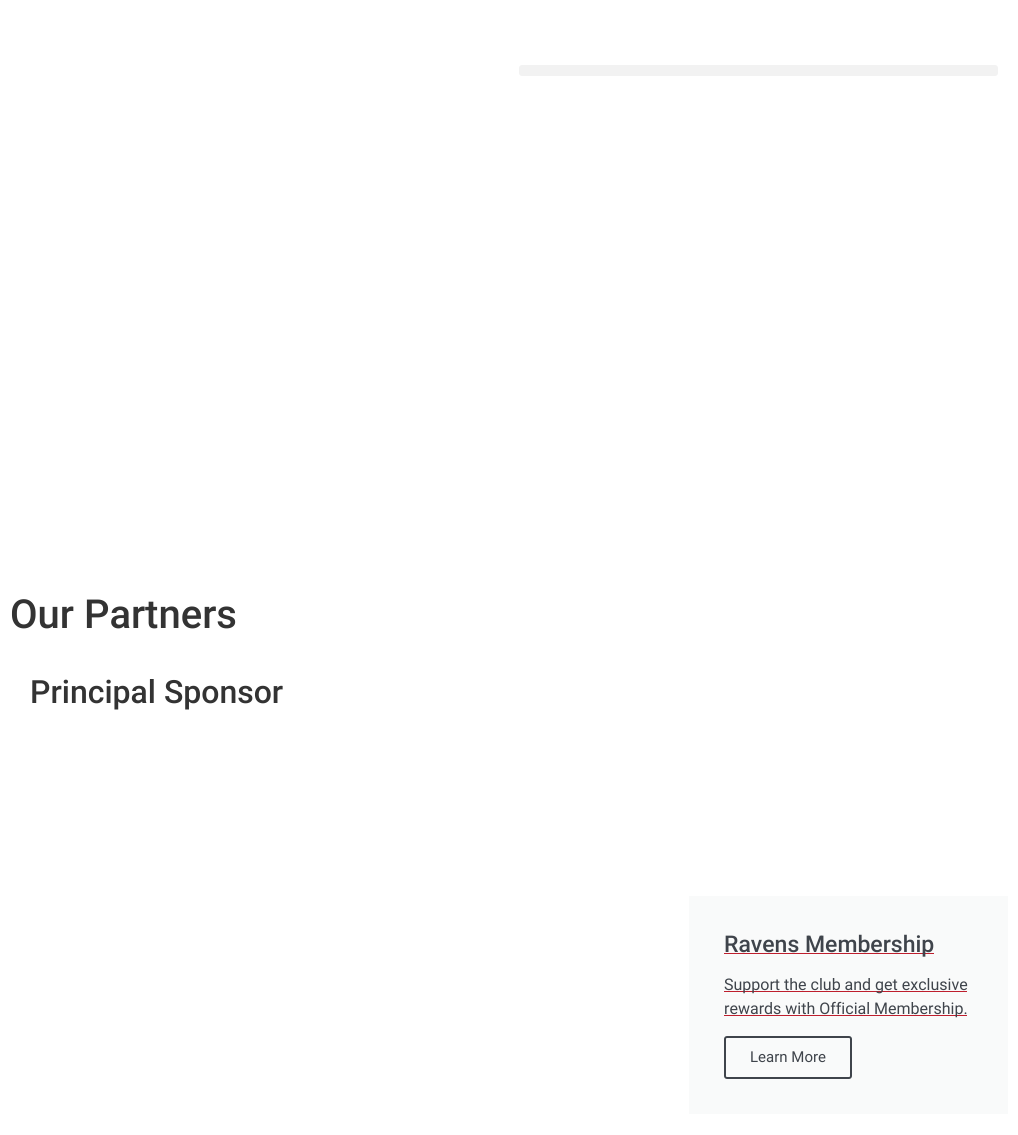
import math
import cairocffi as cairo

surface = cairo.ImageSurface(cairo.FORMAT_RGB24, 1018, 1135)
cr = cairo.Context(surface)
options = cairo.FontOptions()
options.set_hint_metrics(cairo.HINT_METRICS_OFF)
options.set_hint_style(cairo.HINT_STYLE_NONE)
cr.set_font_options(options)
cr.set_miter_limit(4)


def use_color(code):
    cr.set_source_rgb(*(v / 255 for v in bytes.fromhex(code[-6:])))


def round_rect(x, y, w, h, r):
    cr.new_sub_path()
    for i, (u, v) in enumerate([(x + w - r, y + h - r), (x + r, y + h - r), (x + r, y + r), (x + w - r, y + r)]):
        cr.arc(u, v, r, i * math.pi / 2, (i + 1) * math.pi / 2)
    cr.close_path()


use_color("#ffffff")
cr.paint()
use_color("#f2f2f2")
round_rect(519, 65, 479, 11, 3)
cr.fill()
cr.select_font_face("Roboto Medium")
cr.set_font_size(40)
use_color("#333333")
cr.move_to(10, 628)
cr.show_text("Our Partners")
cr.set_font_size(32)
cr.move_to(30, 703)
cr.show_text("Principal Sponsor")
use_color("#f9fafa")
cr.rectangle(689, 896, 319, 218)
cr.fill()
use_color("#be1e2d")
cr.rectangle(724, 953, 210, 1)
cr.fill()
cr.set_font_size(23)
use_color("#3f444b")
cr.move_to(724, 952)
cr.show_text("Ravens Membership")
use_color("#be1e2d")
cr.rectangle(724, 991, 243, 1)
cr.fill()
cr.select_font_face("Roboto")
cr.set_font_size(16)
use_color("#3f444b")
cr.move_to(724, 990)
cr.show_text("Support the club and get exclusive")
use_color("#be1e2d")
cr.rectangle(724, 1015, 243, 1)
cr.fill()
use_color("#3f444b")
cr.move_to(724, 1014)
cr.show_text("rewards with Official Membership.")
round_rect(725, 1037, 126, 41, 2)
cr.stroke()
cr.set_font_size(15)
cr.move_to(750, 1062)
cr.show_text("Learn More")
surface.write_to_png("result.png")
